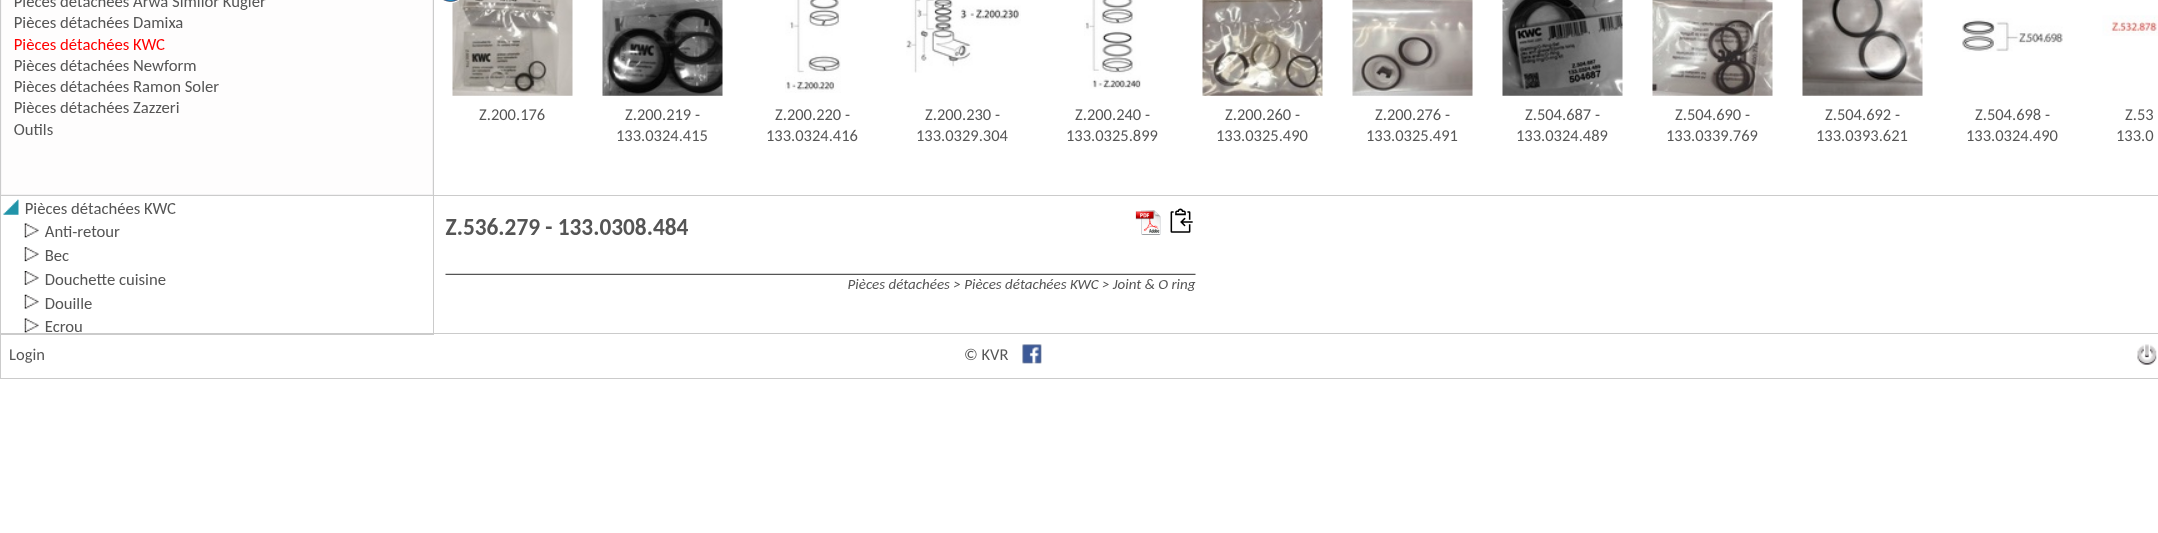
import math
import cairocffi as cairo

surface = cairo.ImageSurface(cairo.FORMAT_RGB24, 2158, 533)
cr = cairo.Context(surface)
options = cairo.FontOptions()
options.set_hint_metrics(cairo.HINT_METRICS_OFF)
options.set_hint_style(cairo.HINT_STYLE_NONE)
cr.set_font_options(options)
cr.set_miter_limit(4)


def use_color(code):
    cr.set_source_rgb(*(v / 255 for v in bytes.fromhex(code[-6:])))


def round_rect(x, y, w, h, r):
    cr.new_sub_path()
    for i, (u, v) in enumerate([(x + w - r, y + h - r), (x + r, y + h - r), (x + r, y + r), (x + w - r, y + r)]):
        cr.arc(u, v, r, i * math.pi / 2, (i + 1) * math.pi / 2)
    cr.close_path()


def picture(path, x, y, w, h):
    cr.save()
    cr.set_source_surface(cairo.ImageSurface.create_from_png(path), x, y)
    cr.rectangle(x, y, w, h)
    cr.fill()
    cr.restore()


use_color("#ffffff")
cr.paint()
use_color("#ededee")
cr.rectangle(0.5, -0.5, 433, 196)
cr.fill_preserve()
use_color("#cbcbcb")
cr.set_line_width(1)
cr.stroke()
picture("img1.png", 1, 0, 432, 195)
cr.rectangle(0.5, 195.5, 433, 139)
cr.stroke()
cr.rectangle(433.5, -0.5, 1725, 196)
cr.stroke()
picture("img3.png", 452, 0, 121, 96)
use_color("#ffffff")
round_rect(435, -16, 31, 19, 15.5)
cr.fill()
picture("img2.png", 443, 0, 15, 2)
cr.select_font_face("Carlito")
cr.set_font_size(16.5)
use_color("#555555")
cr.move_to(479, 120)
cr.show_text("Z.200.176")
picture("img4.png", 602, 0, 121, 96)
cr.move_to(625, 120)
cr.show_text("Z.200.219 -")
cr.move_to(616, 141)
cr.show_text("133.0324.415")
picture("img5.png", 785, 0, 56, 93)
cr.move_to(775, 120)
cr.show_text("Z.200.220 -")
cr.move_to(766, 141)
cr.show_text("133.0324.416")
picture("img6.png", 906, 0, 115, 73)
cr.move_to(925, 120)
cr.show_text("Z.200.230 -")
cr.move_to(916, 141)
cr.show_text("133.0329.304")
picture("img7.png", 1084, 0, 57, 89)
cr.move_to(1075, 120)
cr.show_text("Z.200.240 -")
cr.move_to(1066, 141)
cr.show_text("133.0325.899")
picture("img8.png", 1202, 0, 121, 96)
cr.move_to(1225, 120)
cr.show_text("Z.200.260 -")
cr.move_to(1216, 141)
cr.show_text("133.0325.490")
picture("img9.png", 1352, 0, 121, 96)
cr.move_to(1375, 120)
cr.show_text("Z.200.276 -")
cr.move_to(1366, 141)
cr.show_text("133.0325.491")
picture("img10.png", 1502, 0, 121, 96)
cr.move_to(1525, 120)
cr.show_text("Z.504.687 -")
cr.move_to(1516, 141)
cr.show_text("133.0324.489")
picture("img11.png", 1652, 0, 121, 96)
cr.move_to(1675, 120)
cr.show_text("Z.504.690 -")
cr.move_to(1666, 141)
cr.show_text("133.0339.769")
picture("img12.png", 1802, 0, 121, 96)
cr.move_to(1825, 120)
cr.show_text("Z.504.692 -")
cr.move_to(1816, 141)
cr.show_text("133.0393.621")
picture("img13.png", 1962, 18, 101, 34)
cr.move_to(1975, 120)
cr.show_text("Z.504.698 -")
cr.move_to(1966, 141)
cr.show_text("133.0324.490")
picture("img14.png", 2102, 15, 56, 21)
cr.move_to(2125, 120)
cr.show_text("Z.53")
cr.move_to(2116, 141)
cr.show_text("133.0")
picture("img15.png", 3, 199, 173, 134)
picture("img16.png", 445, 208, 751, 83)
cr.rectangle(0.5, 333.5, 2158, 45)
use_color("#cbcbcb")
cr.stroke()
use_color("#555555")
cr.move_to(9, 360)
cr.show_text("Login")
cr.move_to(964, 360)
cr.show_text("© KVR")
picture("img17.png", 1022, 344, 20, 20)
picture("img18.png", 2137, 344, 20, 21)
surface.write_to_png("result.png")
